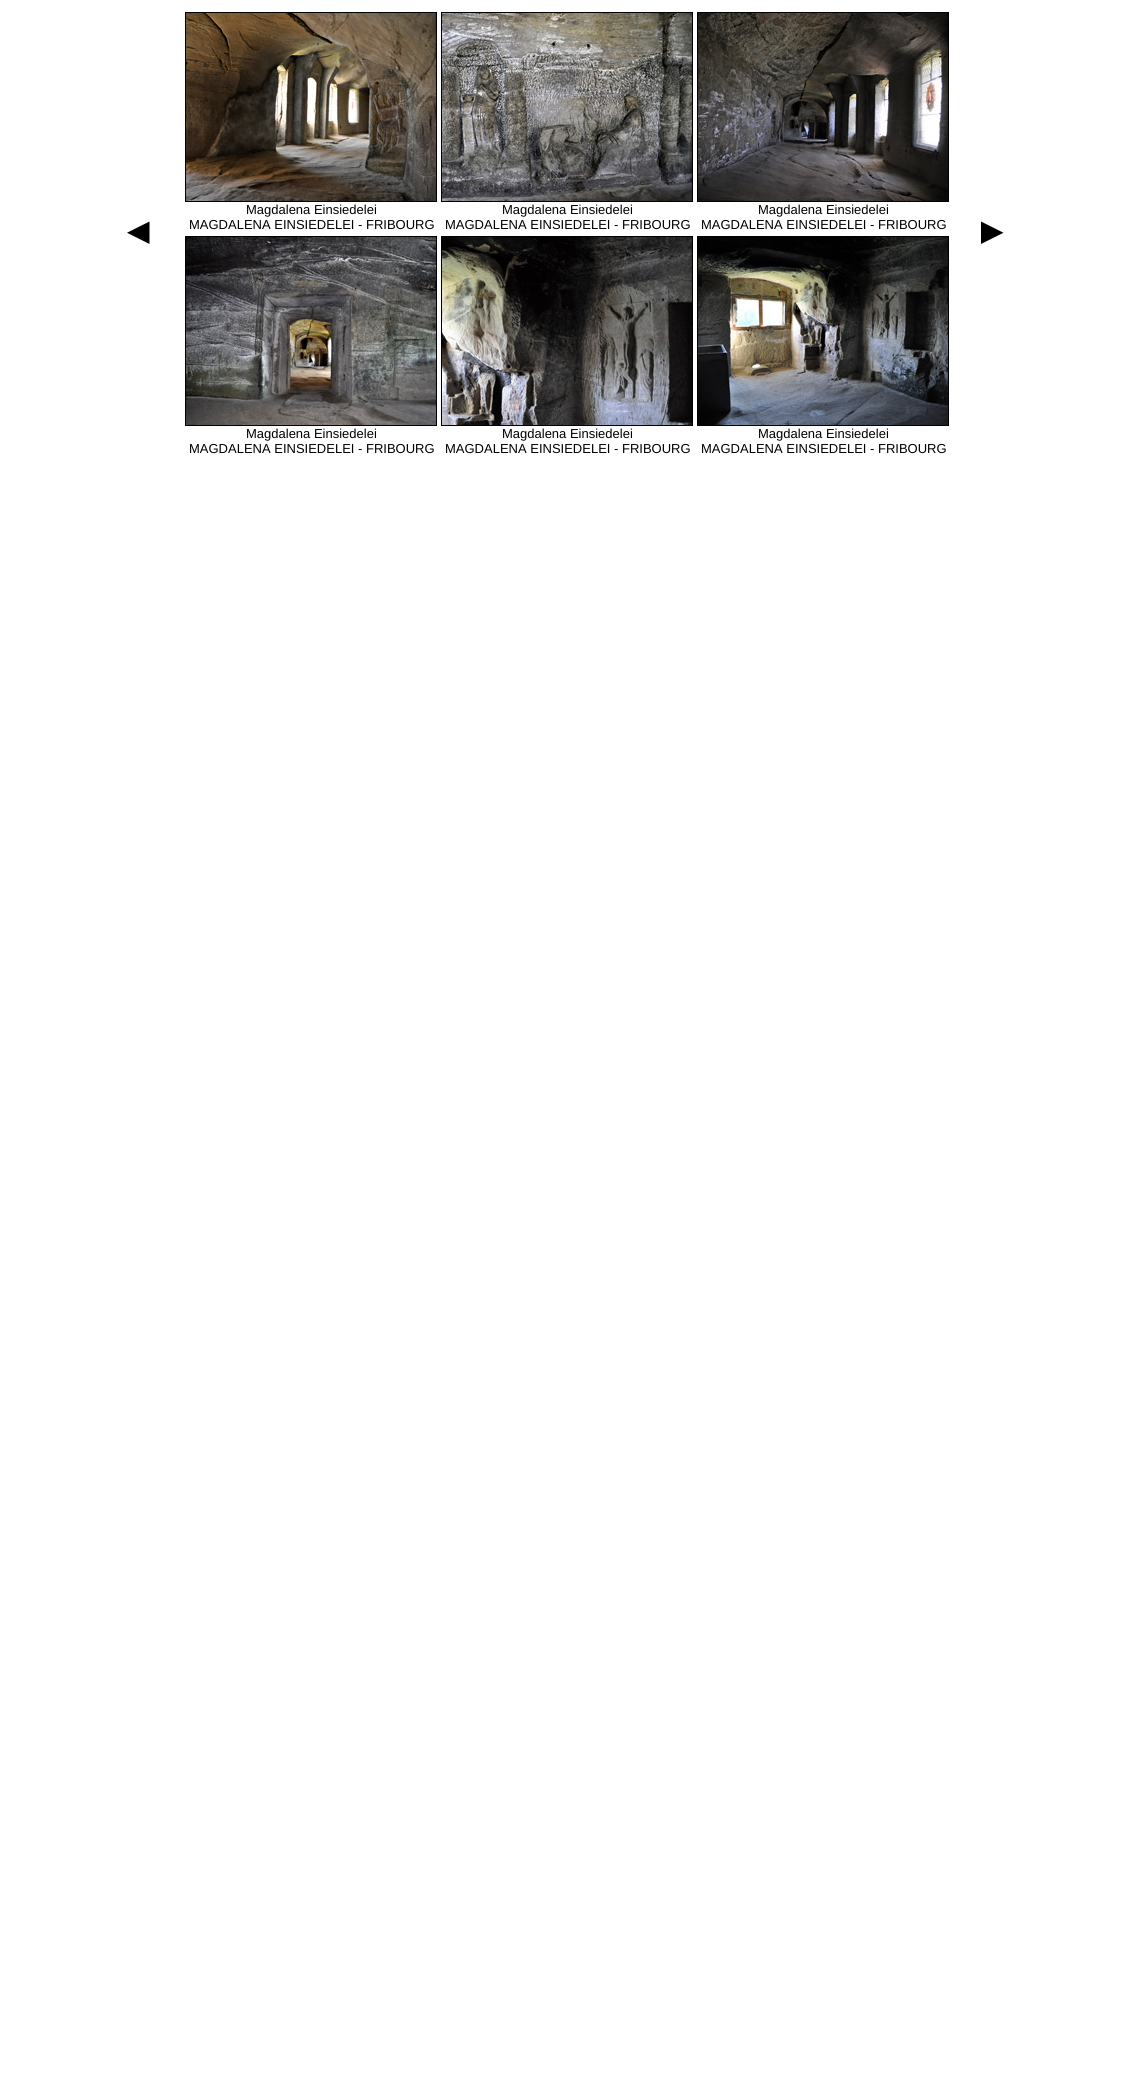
import math
import cairocffi as cairo

surface = cairo.ImageSurface(cairo.FORMAT_RGB24, 1135, 2098)
cr = cairo.Context(surface)
options = cairo.FontOptions()
options.set_hint_metrics(cairo.HINT_METRICS_OFF)
options.set_hint_style(cairo.HINT_STYLE_NONE)
cr.set_font_options(options)
cr.set_miter_limit(4)


def use_color(code):
    cr.set_source_rgb(*(v / 255 for v in bytes.fromhex(code[-6:])))


def picture(path, x, y, w, h):
    cr.save()
    cr.set_source_surface(cairo.ImageSurface.create_from_png(path), x, y)
    cr.rectangle(x, y, w, h)
    cr.fill()
    cr.restore()


use_color("#ffffff")
cr.paint()
picture("img1.png", 127, 221, 23, 23)
cr.rectangle(185.5, 12.5, 251, 189)
use_color("#000000")
cr.set_line_width(1)
cr.stroke()
picture("img2.png", 186, 13, 250, 188)
cr.select_font_face("Liberation Sans")
cr.set_font_size(13)
cr.move_to(246, 214)
cr.show_text("Magdalena Einsiedelei")
cr.move_to(189, 229)
cr.show_text("MAGDALENA EINSIEDELEI - FRIBOURG")
cr.rectangle(441.5, 12.5, 251, 189)
cr.stroke()
picture("img3.png", 442, 13, 250, 188)
cr.move_to(502, 214)
cr.show_text("Magdalena Einsiedelei")
cr.move_to(445, 229)
cr.show_text("MAGDALENA EINSIEDELEI - FRIBOURG")
cr.rectangle(697.5, 12.5, 251, 189)
cr.stroke()
picture("img4.png", 698, 13, 250, 188)
cr.move_to(758, 214)
cr.show_text("Magdalena Einsiedelei")
cr.move_to(701, 229)
cr.show_text("MAGDALENA EINSIEDELEI - FRIBOURG")
cr.rectangle(185.5, 236.5, 251, 189)
cr.stroke()
picture("img5.png", 186, 237, 250, 188)
cr.move_to(246, 438)
cr.show_text("Magdalena Einsiedelei")
cr.move_to(189, 453)
cr.show_text("MAGDALENA EINSIEDELEI - FRIBOURG")
cr.rectangle(441.5, 236.5, 251, 189)
cr.stroke()
picture("img6.png", 442, 237, 250, 188)
cr.move_to(502, 438)
cr.show_text("Magdalena Einsiedelei")
cr.move_to(445, 453)
cr.show_text("MAGDALENA EINSIEDELEI - FRIBOURG")
cr.rectangle(697.5, 236.5, 251, 189)
cr.stroke()
picture("img7.png", 698, 237, 250, 188)
cr.move_to(758, 438)
cr.show_text("Magdalena Einsiedelei")
cr.move_to(701, 453)
cr.show_text("MAGDALENA EINSIEDELEI - FRIBOURG")
picture("img8.png", 981, 221, 23, 23)
surface.write_to_png("result.png")
